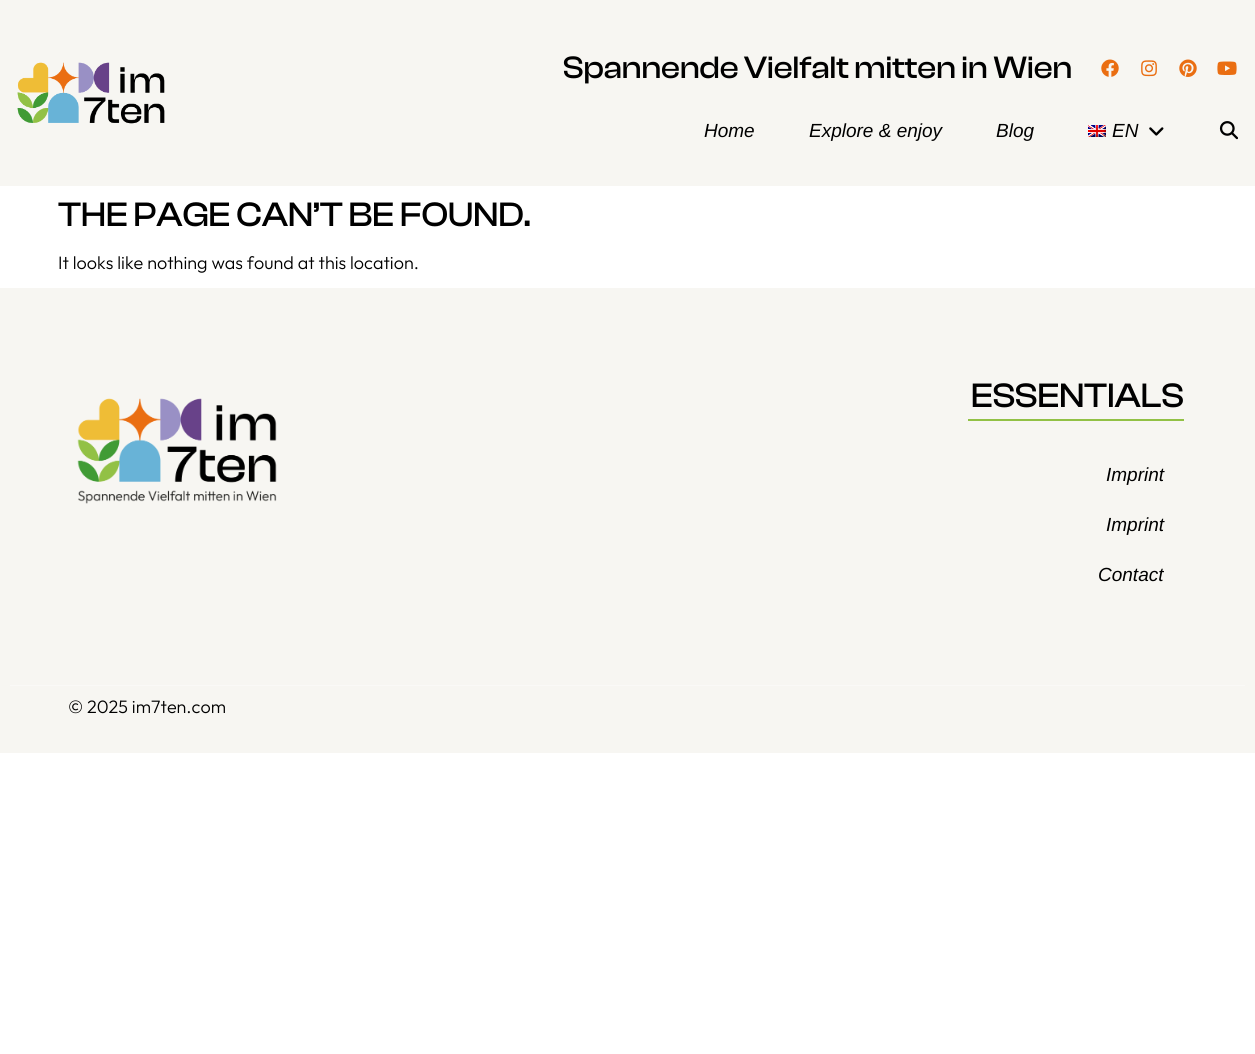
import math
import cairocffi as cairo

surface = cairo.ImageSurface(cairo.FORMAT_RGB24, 1255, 1054)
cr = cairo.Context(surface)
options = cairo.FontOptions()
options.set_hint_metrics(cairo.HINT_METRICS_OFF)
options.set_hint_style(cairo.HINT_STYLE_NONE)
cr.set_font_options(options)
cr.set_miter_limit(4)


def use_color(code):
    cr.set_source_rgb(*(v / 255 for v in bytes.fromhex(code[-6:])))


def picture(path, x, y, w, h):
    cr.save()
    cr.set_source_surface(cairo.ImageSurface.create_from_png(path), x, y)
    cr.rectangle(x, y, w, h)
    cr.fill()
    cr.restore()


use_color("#ffffff")
cr.paint()
use_color("#f7f6f2")
cr.rectangle(0, 0, 1255, 186)
cr.fill()
picture("img1.png", 17, 62, 148, 62)
cr.select_font_face("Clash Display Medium")
cr.set_font_size(32)
use_color("#000000")
cr.move_to(563, 78)
cr.show_text("Spannende Vielfalt mitten in Wien")
picture("img2.png", 1101, 59, 18, 18)
picture("img3.png", 1141, 60, 16, 17)
picture("img4.png", 1179, 59, 18, 18)
picture("img5.png", 1217, 61, 20, 14)
cr.select_font_face("Liberation Sans", cairo.FONT_SLANT_ITALIC)
cr.set_font_size(19)
cr.move_to(704, 137)
cr.show_text("Home")
cr.move_to(809, 137)
cr.show_text("Explore & enjoy")
cr.move_to(996, 137)
cr.show_text("Blog")
picture("img6.png", 1088, 125, 18, 12)
cr.move_to(1112, 137)
cr.show_text("EN")
picture("img7.png", 1149, 127, 15, 9)
picture("img8.png", 1219, 121, 19, 19)
cr.select_font_face("Clash Display Medium")
cr.set_font_size(35)
cr.move_to(58, 226)
cr.show_text("THE PAGE CAN’T BE FOUND.")
cr.select_font_face("Outfit Light")
cr.set_font_size(18)
cr.move_to(58, 269)
cr.show_text("It looks like nothing was found at this location.")
use_color("#f7f6f2")
cr.rectangle(0, 288, 1255, 465)
cr.fill()
picture("img9.png", 77, 398, 200, 106)
cr.select_font_face("Clash Display Medium")
cr.set_font_size(35)
use_color("#000000")
cr.move_to(971, 407)
cr.show_text("ESSENTIALS")
use_color("#92c145")
cr.rectangle(968, 419, 216, 2)
cr.fill()
cr.select_font_face("Liberation Sans", cairo.FONT_SLANT_ITALIC)
cr.set_font_size(19)
use_color("#000000")
cr.move_to(1106, 481)
cr.show_text("Imprint")
cr.move_to(1106, 531)
cr.show_text("Imprint")
cr.move_to(1098, 581)
cr.show_text("Contact")
use_color("#faf9f7")
cr.rectangle(10, 685, 1235, 1)
cr.fill()
cr.select_font_face("Outfit Light")
cr.set_font_size(18)
use_color("#000000")
cr.move_to(68, 713)
cr.show_text("© 2025 im7ten.com")
surface.write_to_png("result.png")
